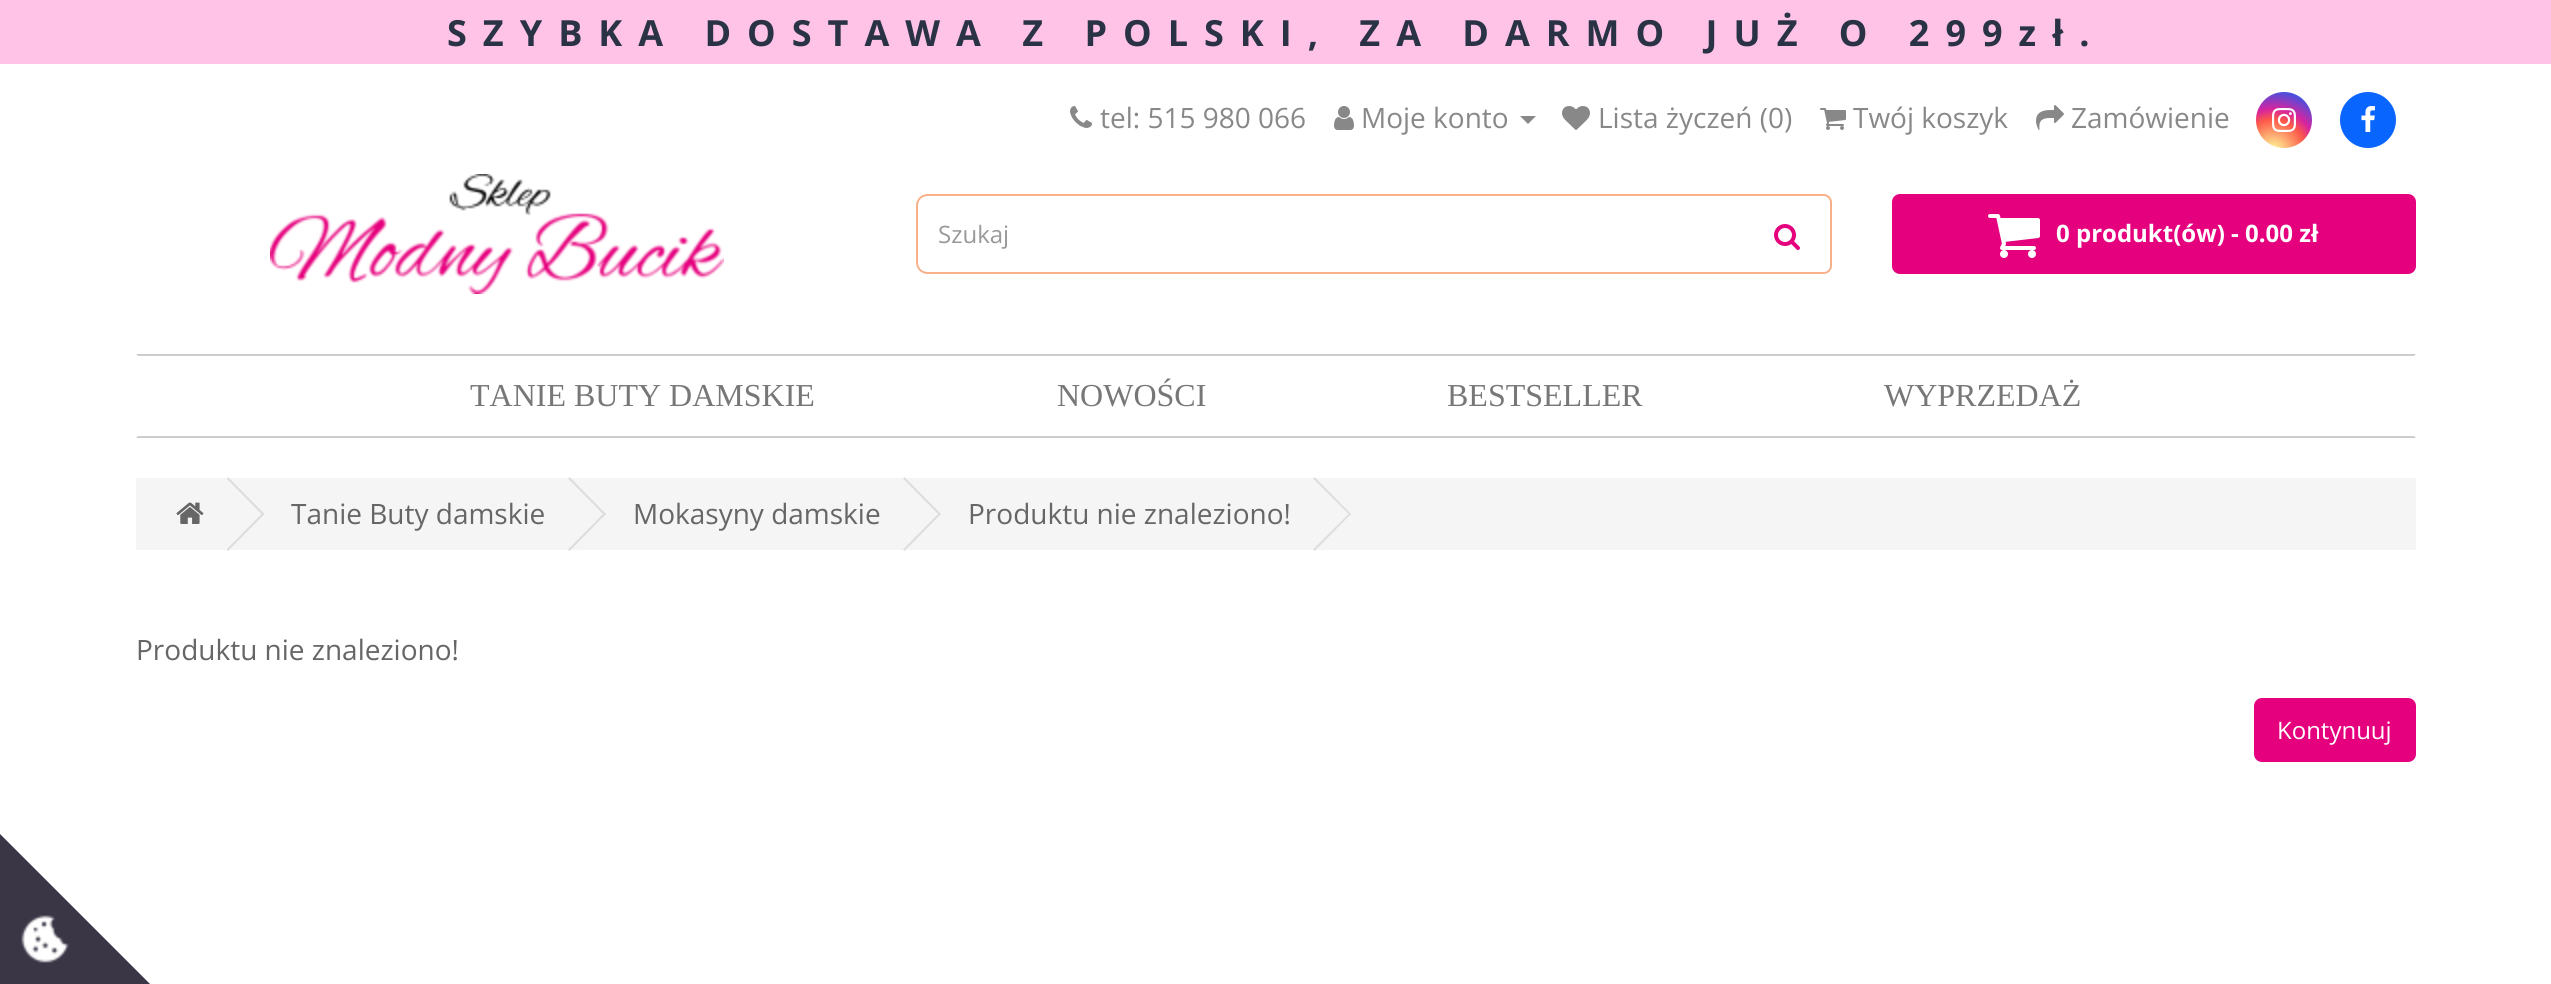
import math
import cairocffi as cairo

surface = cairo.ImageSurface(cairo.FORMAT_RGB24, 2551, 984)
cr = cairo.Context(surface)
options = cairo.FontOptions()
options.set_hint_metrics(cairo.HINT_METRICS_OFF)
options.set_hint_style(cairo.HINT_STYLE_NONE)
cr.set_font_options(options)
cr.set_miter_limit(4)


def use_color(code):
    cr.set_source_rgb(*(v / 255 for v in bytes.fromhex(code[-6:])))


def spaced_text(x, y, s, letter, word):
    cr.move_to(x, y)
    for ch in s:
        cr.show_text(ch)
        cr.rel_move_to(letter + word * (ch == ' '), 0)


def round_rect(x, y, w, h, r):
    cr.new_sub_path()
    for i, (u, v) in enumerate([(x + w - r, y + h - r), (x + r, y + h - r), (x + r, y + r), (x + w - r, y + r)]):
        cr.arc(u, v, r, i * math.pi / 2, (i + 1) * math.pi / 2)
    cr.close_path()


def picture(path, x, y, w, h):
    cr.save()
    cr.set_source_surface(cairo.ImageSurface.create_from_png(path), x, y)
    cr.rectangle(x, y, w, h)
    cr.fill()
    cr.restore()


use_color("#ffffff")
cr.paint()
use_color("#ffc3e7")
cr.rectangle(0, 0, 2551, 64)
cr.fill()
cr.select_font_face("Open Sans", cairo.FONT_SLANT_NORMAL, cairo.FONT_WEIGHT_BOLD)
cr.set_font_size(36)
use_color("#293345")
spaced_text(447, 46, "SZYBKA DOSTAWA Z POLSKI, ZA DARMO JUŻ O 299zł.", 16, 0)
picture("img1.png", 1070, 106, 22, 22)
cr.select_font_face("Open Sans")
cr.set_font_size(28)
use_color("#888888")
cr.move_to(1100, 128)
cr.show_text("tel: 515 980 066")
picture("img2.png", 1334, 106, 20, 24)
cr.move_to(1361, 128)
cr.show_text("Moje konto")
cr.new_path()
cr.move_to(1520, 116)
cr.line_to(1536, 116)
cr.line_to(1528, 124)
cr.close_path()
cr.fill()
picture("img3.png", 1562, 106, 28, 24)
cr.move_to(1598, 128)
cr.show_text("Lista życzeń (0)")
picture("img4.png", 1820, 108, 26, 22)
cr.move_to(1853, 128)
cr.show_text("Twój koszyk")
picture("img5.png", 2036, 105, 28, 25)
cr.move_to(2071, 128)
cr.show_text("Zamówienie")
gradient = cairo.RadialGradient(2273, 152, 0, 2273, 152, 72)
gradient.add_color_stop_rgba(0, 0.992, 0.957, 0.592, 1)
gradient.add_color_stop_rgba(0.05, 0.992, 0.957, 0.592, 1)
gradient.add_color_stop_rgba(0.45, 0.992, 0.349, 0.286, 1)
gradient.add_color_stop_rgba(0.6, 0.839, 0.141, 0.624, 1)
gradient.add_color_stop_rgba(0.9, 0.157, 0.353, 0.922, 1)
cr.set_source(gradient)
cr.new_path()
cr.arc(2284, 120, 28, 0, 2 * math.pi)
cr.fill()
picture("img6.png", 2272, 108, 24, 24)
use_color("#0866ff")
cr.arc(2368, 120, 28, 0, 2 * math.pi)
cr.fill()
picture("img7.png", 2361, 106, 14, 26)
picture("img8.png", 270, 174, 454, 120)
use_color("#f8b088")
cr.set_fill_rule(cairo.FILL_RULE_EVEN_ODD)
cr.new_path()
cr.move_to(928, 194)
cr.line_to(1746, 194)
cr.line_to(1746, 274)
cr.line_to(928, 274)
cr.curve_to(921, 274, 916, 269, 916, 262)
cr.line_to(916, 206)
cr.curve_to(916, 199, 921, 194, 928, 194)
cr.close_path()
cr.move_to(928, 196)
cr.line_to(1746, 196)
cr.line_to(1746, 272)
cr.line_to(928, 272)
cr.curve_to(922, 272, 918, 268, 918, 262)
cr.line_to(918, 206)
cr.curve_to(918, 200, 922, 196, 928, 196)
cr.close_path()
cr.fill()
cr.set_font_size(24)
use_color("#999999")
cr.move_to(938, 243)
cr.show_text("Szukaj")
use_color("#f8b088")
cr.new_path()
cr.move_to(1744, 194)
cr.line_to(1824, 194)
cr.curve_to(1828, 194, 1832, 198, 1832, 202)
cr.line_to(1832, 266)
cr.curve_to(1832, 270, 1828, 274, 1824, 274)
cr.line_to(1744, 274)
cr.close_path()
cr.move_to(1744, 196)
cr.line_to(1824, 196)
cr.curve_to(1827, 196, 1830, 199, 1830, 202)
cr.line_to(1830, 266)
cr.curve_to(1830, 269, 1827, 272, 1824, 272)
cr.line_to(1744, 272)
cr.close_path()
cr.fill()
picture("img9.png", 1774, 224, 26, 26)
use_color("#e5007d")
round_rect(1892, 194, 524, 80, 8)
cr.fill()
picture("img10.png", 1988, 214, 52, 44)
cr.select_font_face("Open Sans", cairo.FONT_SLANT_NORMAL, cairo.FONT_WEIGHT_BOLD)
use_color("#ffffff")
cr.move_to(2056, 242)
cr.show_text("0 produkt(ów) - 0.00 zł")
use_color("#cccccc")
cr.set_fill_rule(cairo.FILL_RULE_WINDING)
cr.new_path()
cr.move_to(136, 354)
cr.line_to(2416, 354)
cr.line_to(2414, 356)
cr.line_to(138, 356)
cr.close_path()
cr.fill()
cr.new_path()
cr.move_to(2416, 438)
cr.line_to(136, 438)
cr.line_to(138, 436)
cr.line_to(2414, 436)
cr.close_path()
cr.fill()
cr.select_font_face("Liberation Serif")
cr.set_font_size(32)
use_color("#777777")
cr.move_to(470, 406)
cr.show_text("TANIE BUTY DAMSKIE")
cr.move_to(1057, 406)
cr.show_text("NOWOŚCI")
cr.move_to(1447, 406)
cr.show_text("BESTSELLER")
cr.move_to(1884, 406)
cr.show_text("WYPRZEDAŻ")
use_color("#f5f5f5")
cr.rectangle(136, 478, 2280, 72)
cr.fill()
picture("img11.png", 176, 502, 28, 22)
use_color("#dddddd")
cr.new_path()
cr.move_to(226.5, 478.5)
cr.line_to(228, 477)
cr.line_to(264.5, 514)
cr.line_to(263, 515.5)
cr.close_path()
cr.fill()
cr.new_path()
cr.move_to(226.5, 549.5)
cr.line_to(263, 512.5)
cr.line_to(264.5, 514)
cr.line_to(228, 551)
cr.close_path()
cr.fill()
cr.select_font_face("Open Sans")
cr.set_font_size(28)
use_color("#666666")
cr.move_to(291, 524)
cr.show_text("Tanie Buty damskie")
use_color("#dddddd")
cr.new_path()
cr.move_to(568, 478.5)
cr.line_to(569.5, 477)
cr.line_to(606, 514)
cr.line_to(604.5, 515.5)
cr.close_path()
cr.fill()
cr.new_path()
cr.move_to(568, 549.5)
cr.line_to(604.5, 512.5)
cr.line_to(606, 514)
cr.line_to(569.5, 551)
cr.close_path()
cr.fill()
use_color("#666666")
cr.move_to(633, 524)
cr.show_text("Mokasyny damskie")
use_color("#dddddd")
cr.new_path()
cr.move_to(903, 478.5)
cr.line_to(904.5, 477)
cr.line_to(941, 514)
cr.line_to(939.5, 515.5)
cr.close_path()
cr.fill()
cr.new_path()
cr.move_to(903, 549.5)
cr.line_to(939.5, 512.5)
cr.line_to(941, 514)
cr.line_to(904.5, 551)
cr.close_path()
cr.fill()
use_color("#666666")
cr.move_to(968, 524)
cr.show_text("Produktu nie znaleziono!")
use_color("#dddddd")
cr.new_path()
cr.move_to(1313, 478.5)
cr.line_to(1314.5, 477)
cr.line_to(1351, 514)
cr.line_to(1350, 515.5)
cr.close_path()
cr.fill()
cr.new_path()
cr.move_to(1313, 549.5)
cr.line_to(1350, 512.5)
cr.line_to(1351, 514)
cr.line_to(1314.5, 551)
cr.close_path()
cr.fill()
use_color("#666666")
cr.move_to(136, 660)
cr.show_text("Produktu nie znaleziono!")
use_color("#e5007d")
round_rect(2254, 698, 162, 64, 8)
cr.fill()
cr.set_font_size(24)
use_color("#ffffff")
cr.move_to(2277, 739)
cr.show_text("Kontynuuj")
use_color("#3b3646")
cr.new_path()
cr.move_to(150, 984)
cr.line_to(0, 984)
cr.line_to(0, 834)
cr.close_path()
cr.fill()
picture("img12.png", 21, 915, 48, 48)
surface.write_to_png("result.png")
